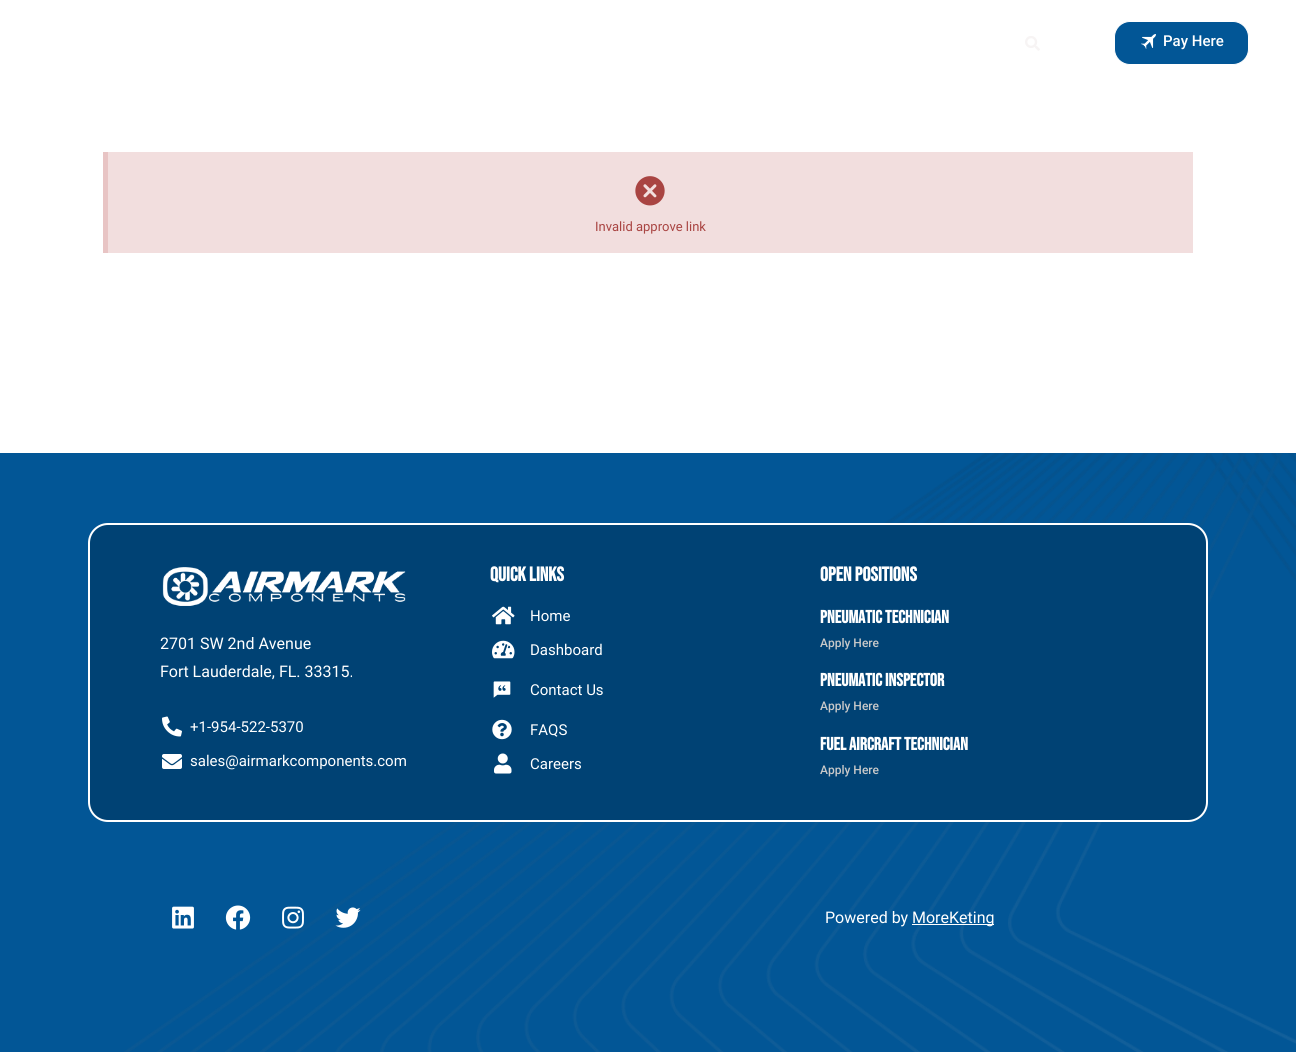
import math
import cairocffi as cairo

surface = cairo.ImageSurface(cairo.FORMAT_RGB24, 1296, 1061)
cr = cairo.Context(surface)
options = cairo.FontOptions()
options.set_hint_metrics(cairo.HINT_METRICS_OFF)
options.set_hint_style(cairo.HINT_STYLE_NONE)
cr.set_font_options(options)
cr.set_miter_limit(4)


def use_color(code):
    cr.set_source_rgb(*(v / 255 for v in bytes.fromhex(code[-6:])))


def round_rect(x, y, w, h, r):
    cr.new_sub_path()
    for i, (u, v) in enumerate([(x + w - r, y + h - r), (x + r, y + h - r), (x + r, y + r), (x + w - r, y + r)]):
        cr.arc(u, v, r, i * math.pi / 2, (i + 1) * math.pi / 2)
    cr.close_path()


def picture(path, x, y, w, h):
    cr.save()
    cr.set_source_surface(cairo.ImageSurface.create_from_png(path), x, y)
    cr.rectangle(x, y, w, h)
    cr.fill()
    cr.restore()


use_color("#ffffff")
cr.paint()
picture("img1.png", 1025, 36, 15, 15)
use_color("#025696")
round_rect(1114.5, 21.5, 134, 43, 15.5)
cr.fill_preserve()
use_color("#ffffff")
cr.set_line_width(1)
cr.stroke()
picture("img2.png", 1141, 34, 15, 15)
cr.select_font_face("Roboto Medium")
cr.set_font_size(15)
cr.move_to(1163, 46)
cr.show_text("Pay Here")
use_color("#f2dede")
cr.rectangle(108, 152, 1085, 101)
cr.fill()
use_color("#e8c4c4")
cr.rectangle(103, 152, 5, 101)
cr.fill()
picture("img3.png", 635, 176, 30, 30)
cr.select_font_face("Roboto")
cr.set_font_size(13)
use_color("#a94442")
cr.move_to(595, 231)
cr.show_text("Invalid approve link")
use_color("#025696")
cr.rectangle(0, 453, 1296, 599)
cr.fill()
picture("img4.png", 124, 453, 1172, 599)
use_color("#004274")
round_rect(89, 524, 1118, 297, 19)
cr.fill_preserve()
use_color("#ffffff")
cr.set_line_width(2)
cr.stroke()
picture("img5.png", 162, 567, 244, 39)
cr.set_font_size(16)
cr.move_to(160, 649)
cr.show_text("2701 SW 2nd Avenue")
cr.move_to(160, 677)
cr.show_text("Fort Lauderdale, FL. 33315.")
picture("img6.png", 162, 716, 20, 21)
cr.set_font_size(15)
cr.move_to(190, 732)
cr.show_text("+1-954-522-5370")
picture("img7.png", 162, 754, 20, 15)
cr.move_to(190, 766)
cr.show_text("sales@airmarkcomponents.com")
cr.select_font_face("Bebas Neue", cairo.FONT_SLANT_NORMAL, cairo.FONT_WEIGHT_BOLD)
cr.set_font_size(20)
cr.move_to(490, 581)
cr.show_text("Quick Links")
picture("img8.png", 492, 606, 23, 19)
cr.select_font_face("Roboto")
cr.set_font_size(15)
cr.move_to(530, 621)
cr.show_text("Home")
picture("img9.png", 492, 640, 23, 19)
cr.move_to(530, 655)
cr.show_text("Dashboard")
picture("img10.png", 493, 681, 18, 17)
cr.move_to(530, 695)
cr.show_text("Contact Us")
picture("img11.png", 492, 719, 20, 21)
cr.move_to(530, 735)
cr.show_text("FAQS")
picture("img12.png", 494, 753, 18, 21)
cr.move_to(530, 769)
cr.show_text("Careers")
cr.select_font_face("Bebas Neue", cairo.FONT_SLANT_NORMAL, cairo.FONT_WEIGHT_BOLD)
cr.set_font_size(20)
cr.move_to(820, 581)
cr.show_text("OPEN POSITIONS")
cr.set_font_size(18)
cr.move_to(820, 623)
cr.show_text("Pneumatic Technician")
cr.select_font_face("Roboto Medium")
cr.set_font_size(12)
use_color("#c9c9c9")
cr.move_to(820, 647)
cr.show_text("Apply Here")
cr.select_font_face("Bebas Neue", cairo.FONT_SLANT_NORMAL, cairo.FONT_WEIGHT_BOLD)
cr.set_font_size(18)
use_color("#ffffff")
cr.move_to(820, 686)
cr.show_text("Pneumatic Inspector")
cr.select_font_face("Roboto Medium")
cr.set_font_size(12)
use_color("#c9c9c9")
cr.move_to(820, 710)
cr.show_text("Apply Here")
cr.select_font_face("Bebas Neue", cairo.FONT_SLANT_NORMAL, cairo.FONT_WEIGHT_BOLD)
cr.set_font_size(18)
use_color("#ffffff")
cr.move_to(820, 750)
cr.show_text("Fuel Aircraft Technician")
cr.select_font_face("Roboto Medium")
cr.set_font_size(12)
use_color("#c9c9c9")
cr.move_to(820, 774)
cr.show_text("Apply Here")
picture("img13.png", 172, 906, 22, 23)
picture("img14.png", 225, 905, 26, 25)
picture("img15.png", 282, 906, 22, 23)
picture("img16.png", 335, 907, 26, 21)
cr.select_font_face("Roboto")
cr.set_font_size(16)
use_color("#ffffff")
cr.move_to(825, 923)
cr.show_text("Powered by")
cr.rectangle(912, 924, 82, 1)
cr.fill()
cr.move_to(912, 923)
cr.show_text("MoreKeting")
surface.write_to_png("result.png")
